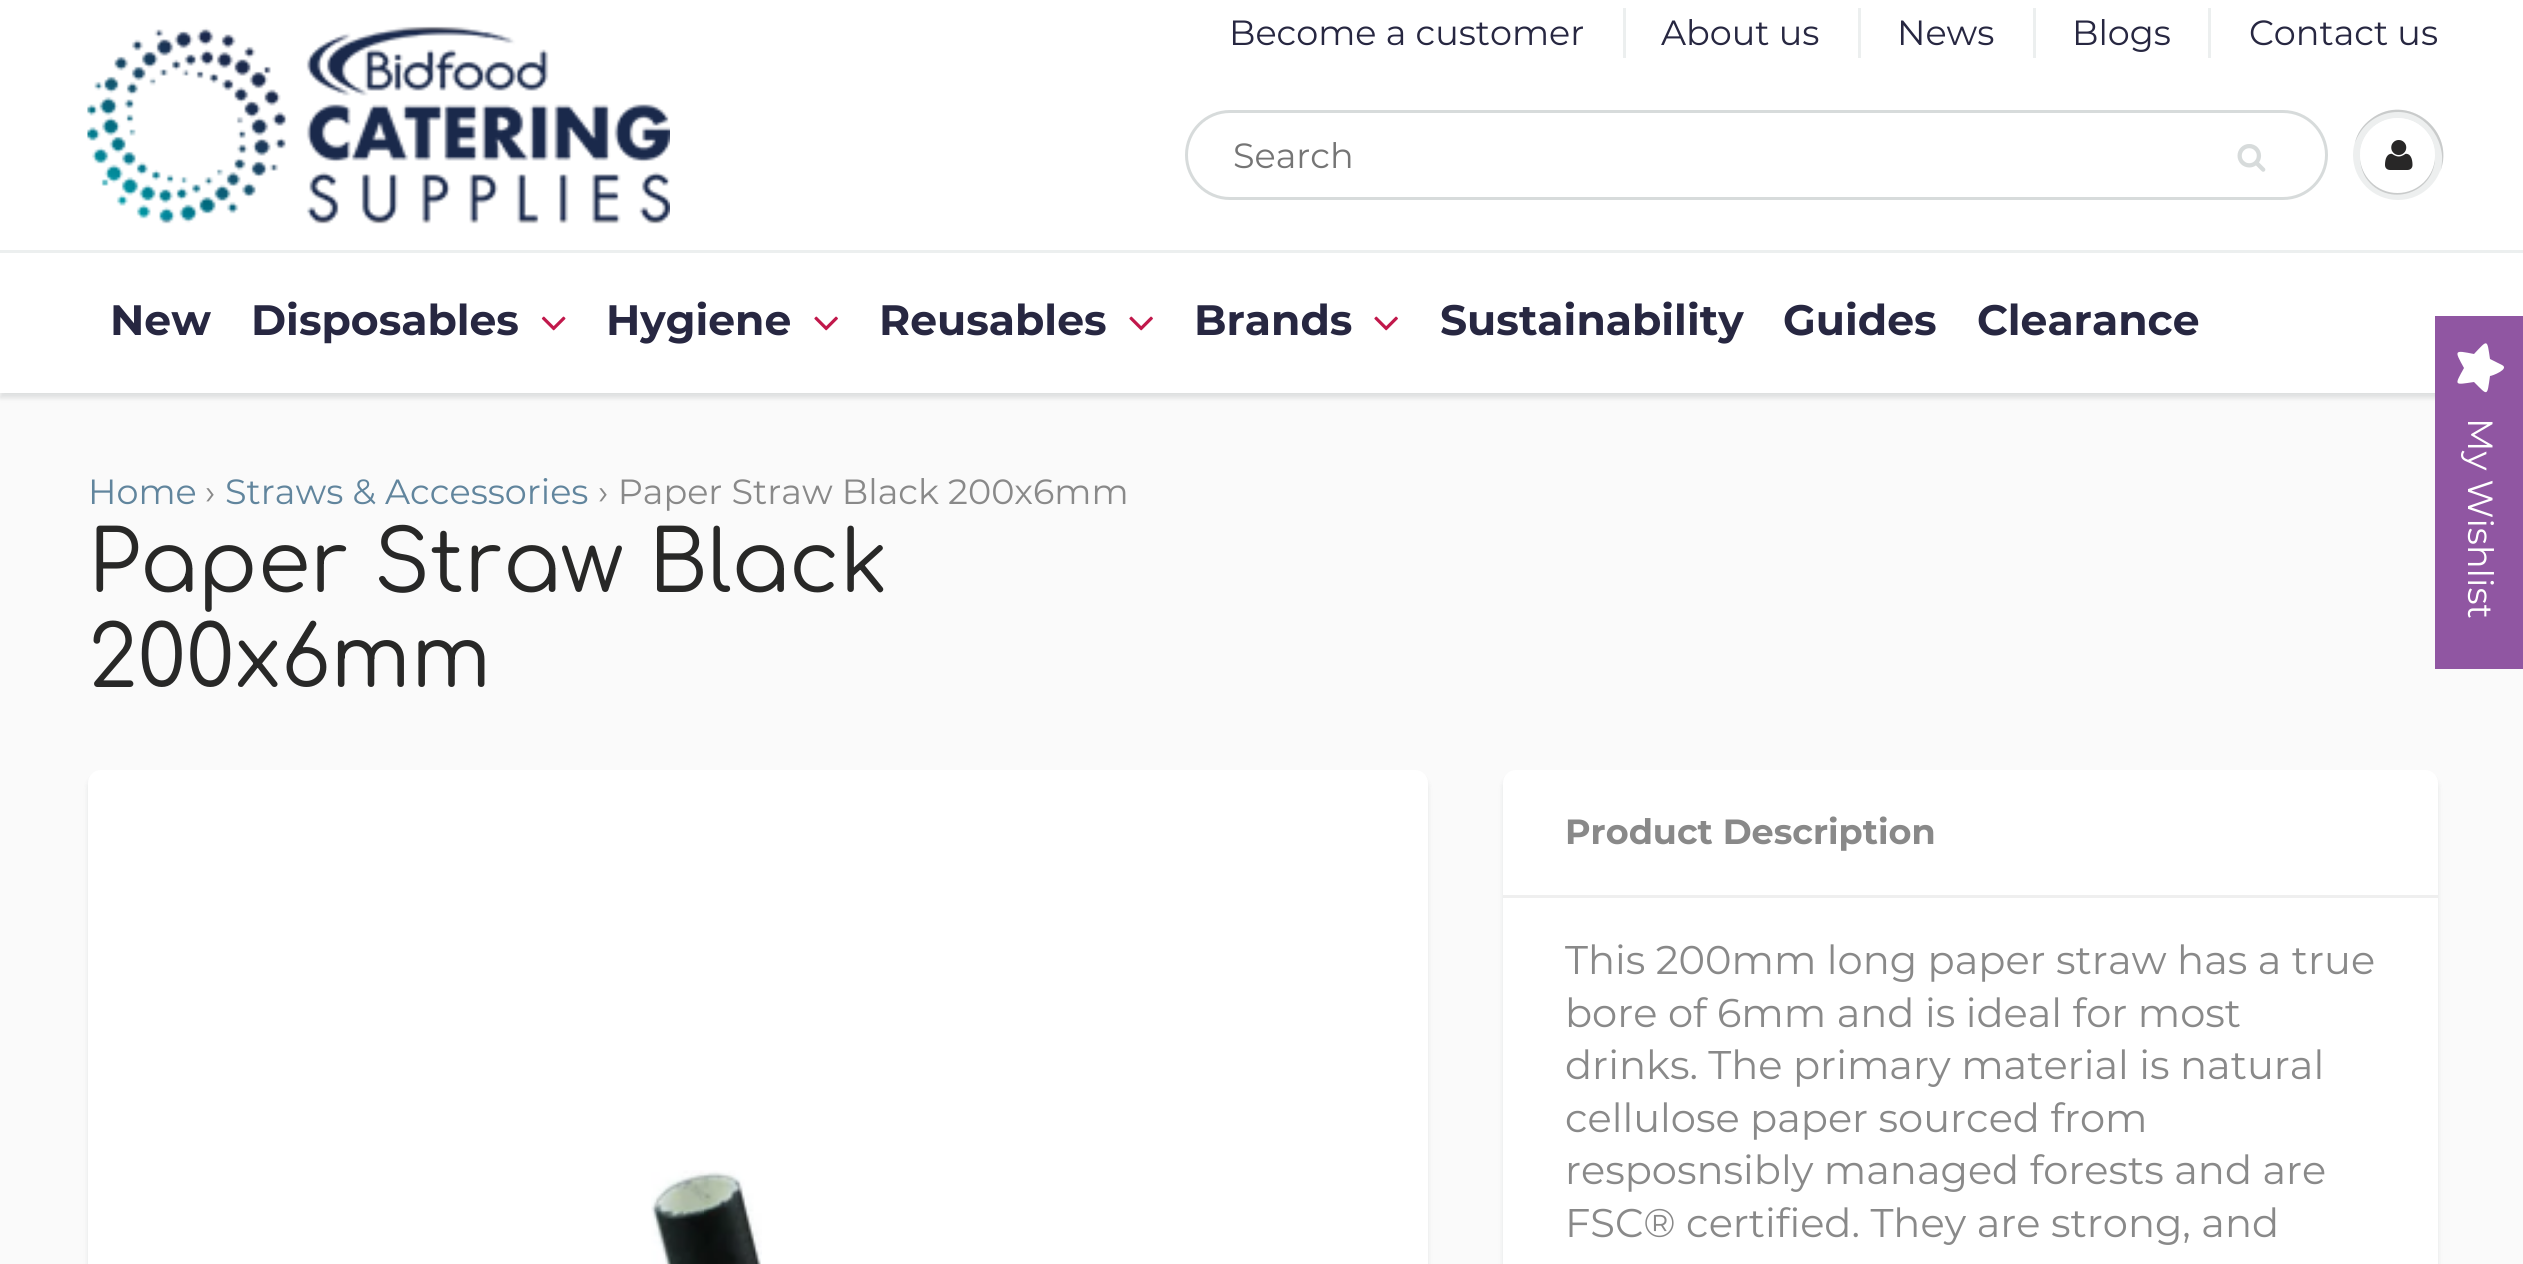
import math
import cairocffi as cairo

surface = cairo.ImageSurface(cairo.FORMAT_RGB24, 2523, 1264)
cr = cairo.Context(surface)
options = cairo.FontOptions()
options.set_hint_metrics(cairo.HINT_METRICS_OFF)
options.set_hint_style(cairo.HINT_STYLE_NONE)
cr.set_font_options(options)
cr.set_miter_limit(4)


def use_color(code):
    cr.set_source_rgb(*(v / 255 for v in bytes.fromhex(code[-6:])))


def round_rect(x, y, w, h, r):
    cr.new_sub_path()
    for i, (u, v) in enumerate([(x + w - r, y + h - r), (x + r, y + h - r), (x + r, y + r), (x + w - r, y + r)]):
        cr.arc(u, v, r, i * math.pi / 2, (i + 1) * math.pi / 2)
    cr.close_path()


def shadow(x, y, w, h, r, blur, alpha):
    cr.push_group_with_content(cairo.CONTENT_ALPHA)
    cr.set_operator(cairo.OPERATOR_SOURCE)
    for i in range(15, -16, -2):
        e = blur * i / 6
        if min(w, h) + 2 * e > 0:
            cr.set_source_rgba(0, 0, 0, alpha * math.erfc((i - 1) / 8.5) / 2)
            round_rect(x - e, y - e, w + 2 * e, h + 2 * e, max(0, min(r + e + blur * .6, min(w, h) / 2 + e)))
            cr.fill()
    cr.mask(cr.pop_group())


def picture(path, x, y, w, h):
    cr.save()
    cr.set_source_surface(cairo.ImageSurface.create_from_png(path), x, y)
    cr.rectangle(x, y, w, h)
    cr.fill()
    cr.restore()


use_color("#ffffff")
cr.paint()
picture("img1.png", 87, 26, 583, 198)
cr.select_font_face("Montserrat")
cr.set_font_size(35)
use_color("#272741")
cr.move_to(1229, 45)
cr.show_text("Become a customer")
use_color("#ecefef")
cr.rectangle(1623, 8, 3, 50)
cr.fill()
use_color("#272741")
cr.move_to(1661, 45)
cr.show_text("About us")
use_color("#ecefef")
cr.rectangle(1858, 8, 3, 50)
cr.fill()
use_color("#272741")
cr.move_to(1897, 45)
cr.show_text("News")
use_color("#ecefef")
cr.rectangle(2033, 8, 3, 50)
cr.fill()
use_color("#272741")
cr.move_to(2072, 45)
cr.show_text("Blogs")
use_color("#ecefef")
cr.rectangle(2208, 8, 3, 50)
cr.fill()
use_color("#272741")
cr.move_to(2249, 45)
cr.show_text("Contact us")
round_rect(1186.5, 111.5, 1140, 87, 43.5)
use_color("#d7dbdb")
cr.set_line_width(3)
cr.stroke()
use_color("#757575")
cr.move_to(1233, 168)
cr.show_text("Search")
picture("img2.png", 2237, 144, 29, 28)
use_color("#edefef")
cr.arc(2398, 155, 45, 0, 2 * math.pi)
cr.fill()
use_color("#c9cbcb")
cr.new_path()
cr.move_to(2398, 112)
cr.curve_to(2428, 112, 2449, 145, 2440, 172)
cr.curve_to(2457, 131, 2407, 91, 2371, 119)
cr.curve_to(2363, 125, 2357, 133, 2355, 143)
cr.curve_to(2361, 125, 2378, 112, 2398, 112)
cr.close_path()
cr.fill()
cr.new_path()
cr.move_to(2435, 156)
cr.curve_to(2434, 176, 2418, 192, 2398, 192)
cr.curve_to(2377, 192, 2361, 176, 2360, 156)
cr.curve_to(2360, 164, 2362, 172, 2366, 178)
cr.curve_to(2387, 209, 2436, 194, 2435, 156)
cr.close_path()
cr.fill()
use_color("#ffffff")
cr.arc(2397.5, 155.5, 37.5, 0, 2 * math.pi)
cr.fill()
cr.new_path()
cr.move_to(2398, 120)
cr.curve_to(2418, 120, 2434, 136, 2435, 157)
cr.curve_to(2435, 149, 2433, 141, 2429, 135)
cr.curve_to(2408, 104, 2359, 119, 2360, 157)
cr.curve_to(2361, 136, 2377, 120, 2398, 120)
cr.close_path()
cr.fill()
picture("img3.png", 2385, 140, 28, 30)
use_color("#fafafa")
cr.rectangle(0, 393, 2523, 871)
cr.fill()
use_color("#0b191c")
shadow(0, 255, 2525, 143, 0, 2.5, 0.12)
use_color("#ffffff")
cr.rectangle(0, 253, 2523, 140)
cr.fill()
use_color("#ecefef")
cr.rectangle(0, 250, 2523, 3)
cr.fill()
cr.select_font_face("Montserrat", cairo.FONT_SLANT_NORMAL, cairo.FONT_WEIGHT_BOLD)
cr.set_font_size(42.5)
use_color("#272741")
cr.move_to(110, 335)
cr.show_text("New")
cr.move_to(251, 335)
cr.show_text("Disposables")
picture("img4.png", 541, 316, 25, 15)
cr.move_to(606, 335)
cr.show_text("Hygiene")
picture("img5.png", 814, 316, 24, 15)
cr.move_to(879, 335)
cr.show_text("Reusables")
picture("img5.png", 1129, 316, 24, 15)
cr.move_to(1194, 335)
cr.show_text("Brands")
picture("img5.png", 1374, 316, 24, 15)
cr.move_to(1440, 335)
cr.show_text("Sustainability")
cr.move_to(1783, 335)
cr.show_text("Guides")
cr.move_to(1977, 335)
cr.show_text("Clearance")
cr.select_font_face("Montserrat")
cr.set_font_size(35)
use_color("#61859d")
cr.move_to(88, 504)
cr.show_text("Home")
use_color("#898989")
cr.move_to(205, 504)
cr.show_text("›")
use_color("#61859d")
cr.move_to(225, 504)
cr.show_text("Straws & Accessories")
use_color("#898989")
cr.move_to(598, 504)
cr.show_text("› Paper Straw Black 200x6mm")
cr.select_font_face("Comfortaa")
cr.set_font_size(85)
use_color("#282827")
cr.move_to(88, 592)
cr.show_text("Paper Straw Black")
cr.move_to(88, 687)
cr.show_text("200x6mm")
use_color("#0b191c")
shadow(88, 775, 1340, 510, 13, 2.5, 0.1)
use_color("#ffffff")
round_rect(88, 770, 1340, 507, 13)
cr.fill()
picture("img6.png", 651, 1170, 111, 94)
use_color("#0b191c")
shadow(1503, 775, 935, 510, 13, 2.5, 0.1)
use_color("#ffffff")
round_rect(1503, 770, 935, 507, 13)
cr.fill()
use_color("#efefef")
cr.rectangle(1503, 895, 935, 3)
cr.fill()
cr.select_font_face("Montserrat", cairo.FONT_SLANT_NORMAL, cairo.FONT_WEIGHT_BOLD)
cr.set_font_size(35)
use_color("#898989")
cr.move_to(1565, 844)
cr.show_text("Product Description")
cr.select_font_face("Montserrat")
cr.set_font_size(40)
cr.move_to(1565, 974)
cr.show_text("This 200mm long paper straw has a true")
cr.move_to(1565, 1027)
cr.show_text("bore of 6mm and is ideal for most")
cr.move_to(1565, 1079)
cr.show_text("drinks. The primary material is natural")
cr.move_to(1565, 1132)
cr.show_text("cellulose paper sourced from")
cr.move_to(1565, 1184)
cr.show_text("resposnsibly managed forests and are")
cr.move_to(1565, 1237)
cr.show_text("FSC® certified. They are strong, and")
use_color("#9056a2")
cr.rectangle(2435, 316, 88, 353)
cr.fill()
use_color("#ffffff")
cr.new_path()
cr.move_to(2502, 365)
cr.line_to(2490, 359)
cr.curve_to(2487, 339, 2488, 339, 2474, 354)
cr.curve_to(2454, 350, 2454, 350, 2464, 368)
cr.curve_to(2454, 386, 2454, 385, 2474, 382)
cr.curve_to(2488, 396, 2487, 397, 2490, 376)
cr.curve_to(2492, 376, 2510, 369, 2502, 365)
cr.close_path()
cr.fill()
cr.set_font_size(35)
cr.save()
cr.translate(2468, 418)
cr.rotate(90 * math.pi / 180)
cr.move_to(0, 0)
cr.show_text("My Wishlist")
cr.restore()
surface.write_to_png("result.png")
